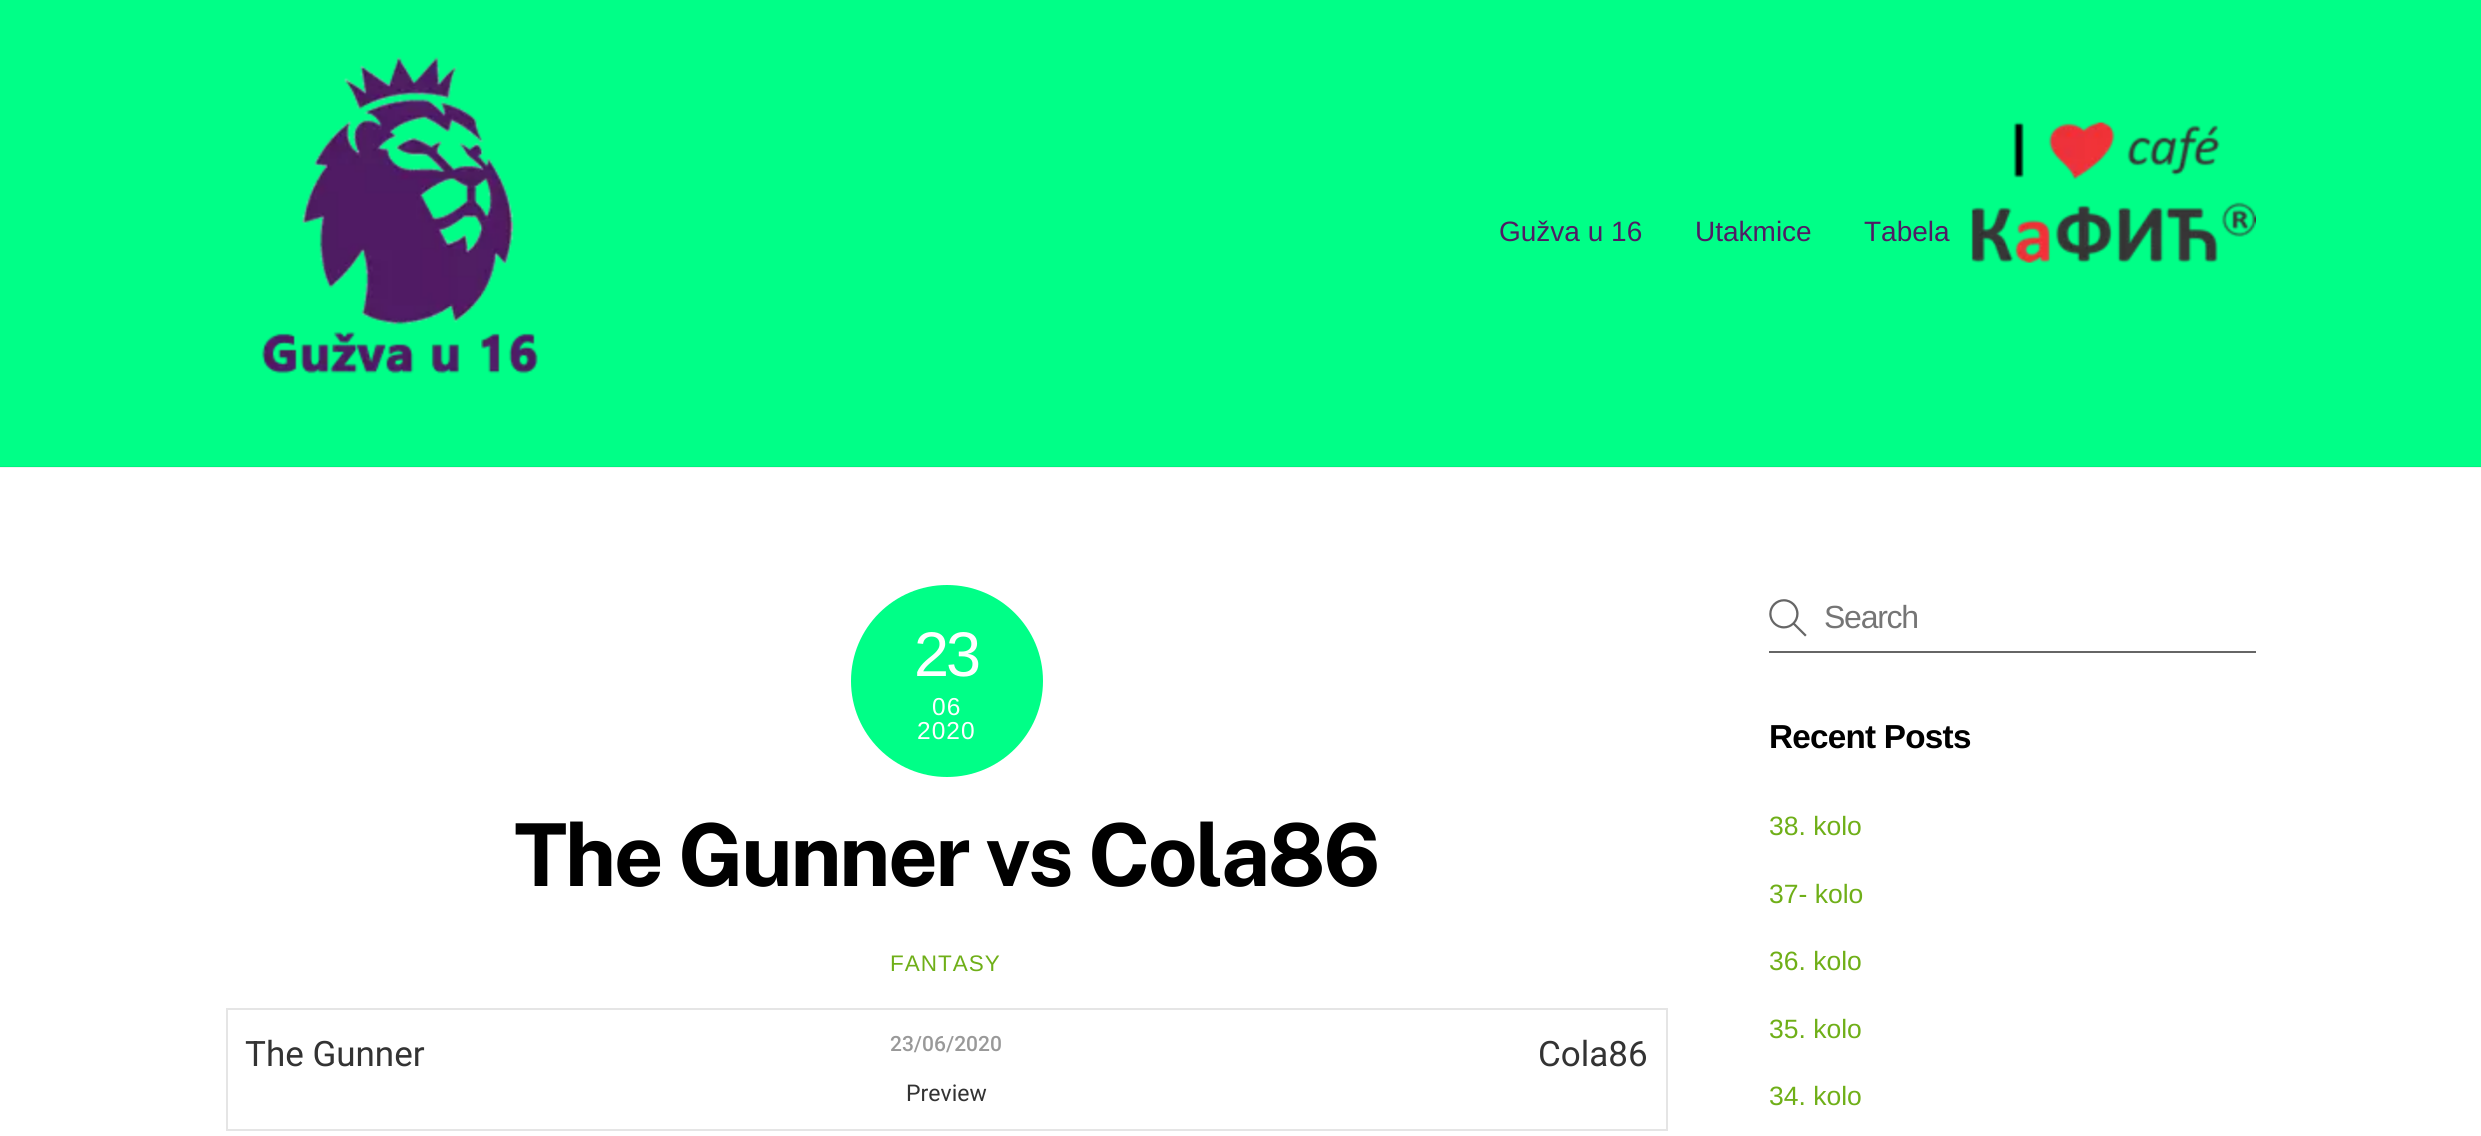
import math
import cairocffi as cairo

surface = cairo.ImageSurface(cairo.FORMAT_RGB24, 2481, 1136)
cr = cairo.Context(surface)
options = cairo.FontOptions()
options.set_hint_metrics(cairo.HINT_METRICS_OFF)
options.set_hint_style(cairo.HINT_STYLE_NONE)
cr.set_font_options(options)
cr.set_miter_limit(4)


def use_color(code):
    cr.set_source_rgb(*(v / 255 for v in bytes.fromhex(code[-6:])))


def spaced_text(x, y, s, letter, word):
    cr.move_to(x, y)
    for ch in s:
        cr.show_text(ch)
        cr.rel_move_to(letter + word * (ch == ' '), 0)


def picture(path, x, y, w, h):
    cr.save()
    cr.set_source_surface(cairo.ImageSurface.create_from_png(path), x, y)
    cr.rectangle(x, y, w, h)
    cr.fill()
    cr.restore()


use_color("#ffffff")
cr.paint()
use_color("#f2f2f2")
cr.rectangle(0, 467, 2481, 1)
cr.fill()
use_color("#00ff87")
cr.rectangle(0, 0, 2481, 466)
cr.fill()
use_color("#00f280")
cr.rectangle(0, 466, 2481, 1)
cr.fill()
picture("img1.png", 261, 56, 277, 318)
cr.select_font_face("Liberation Sans")
cr.set_font_size(28)
use_color("#501c64")
cr.move_to(1499, 241)
cr.show_text("Gužva u 16")
cr.move_to(1695, 241)
cr.show_text("Utakmice")
cr.move_to(1864, 241)
cr.show_text("Tabela")
picture("img2.png", 1971, 121, 285, 142)
use_color("#00ff87")
cr.arc(947, 681, 96, 0, 2 * math.pi)
cr.fill()
cr.set_font_size(63)
use_color("#ffffff")
spaced_text(914, 676, "23", -3, 0)
cr.set_font_size(24.5)
spaced_text(932, 715, "06", 1, 0)
spaced_text(917, 739, "2020", 1, 0)
cr.select_font_face("Public Sans", cairo.FONT_SLANT_NORMAL, cairo.FONT_WEIGHT_BOLD)
cr.set_font_size(86.75)
use_color("#000000")
spaced_text(514, 886, "The Gunner vs Cola86", -2.6, 0)
cr.select_font_face("Liberation Sans")
cr.set_font_size(22.5)
use_color("#6faf18")
spaced_text(890, 971, "FANTASY", 1, 0)
use_color("#e5e5e5")
cr.rectangle(226, 1008, 1442, 2)
cr.fill()
cr.rectangle(1666, 1008, 2, 123)
cr.fill()
cr.rectangle(226, 1129, 1442, 2)
cr.fill()
cr.rectangle(226, 1008, 2, 123)
cr.fill()
cr.select_font_face("Roboto")
cr.set_font_size(35)
use_color("#333333")
cr.move_to(245, 1066)
cr.show_text("The Gunner")
cr.select_font_face("Roboto Medium")
cr.set_font_size(21)
use_color("#999999")
cr.move_to(890, 1051)
cr.show_text("23/06/2020")
cr.select_font_face("Roboto")
cr.set_font_size(35)
use_color("#333333")
cr.move_to(1538, 1066)
cr.show_text("Cola86")
cr.set_font_size(23)
cr.move_to(906, 1101)
cr.show_text("Preview")
use_color("#666666")
cr.rectangle(1769, 651, 487, 2)
cr.fill()
picture("img3.png", 1769, 599, 38, 38)
cr.select_font_face("Liberation Sans")
cr.set_font_size(32)
use_color("#757575")
spaced_text(1824, 628, "Search", -1.25, 0)
cr.select_font_face("Liberation Sans", cairo.FONT_SLANT_NORMAL, cairo.FONT_WEIGHT_BOLD)
cr.set_font_size(33.25)
use_color("#000000")
spaced_text(1769, 748, "Recent Posts", -0.75, 0)
cr.select_font_face("Liberation Sans")
cr.set_font_size(26.5)
use_color("#6faf18")
cr.move_to(1769, 835)
cr.show_text("38. kolo")
cr.move_to(1769, 903)
cr.show_text("37- kolo")
cr.move_to(1769, 970)
cr.show_text("36. kolo")
cr.move_to(1769, 1038)
cr.show_text("35. kolo")
cr.move_to(1769, 1105)
cr.show_text("34. kolo")
surface.write_to_png("result.png")
